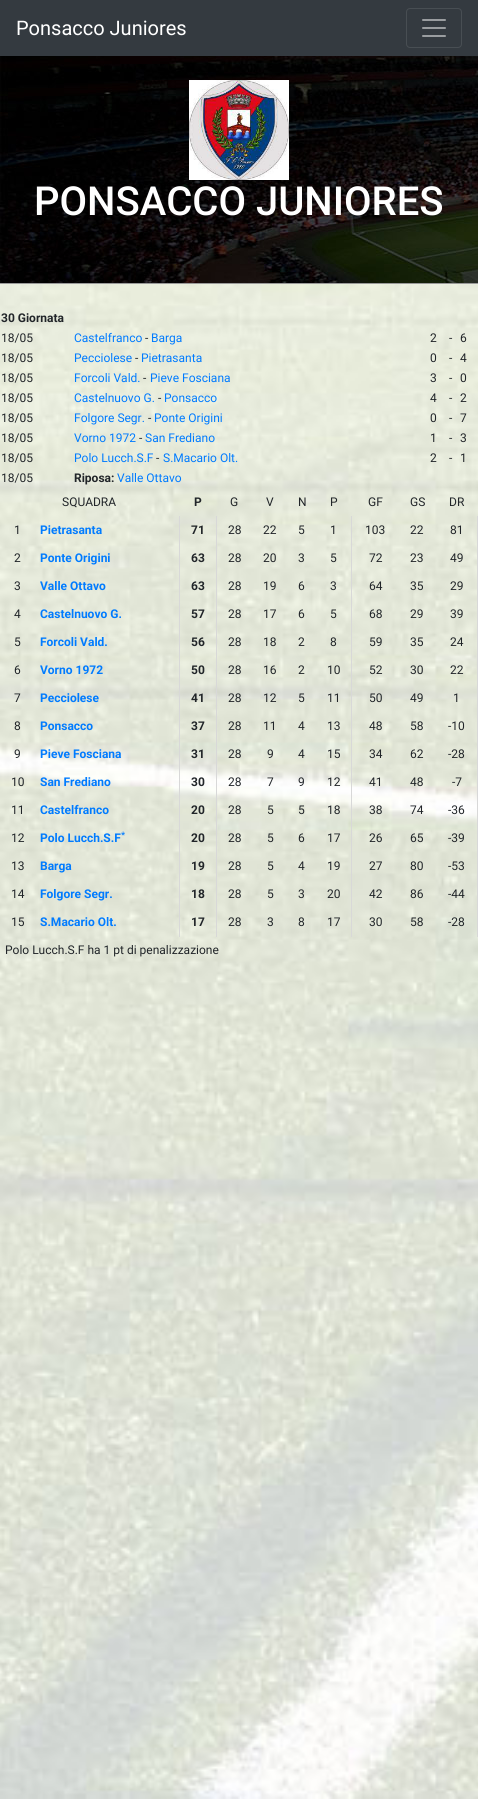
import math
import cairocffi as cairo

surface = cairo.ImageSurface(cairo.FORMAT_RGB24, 478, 1799)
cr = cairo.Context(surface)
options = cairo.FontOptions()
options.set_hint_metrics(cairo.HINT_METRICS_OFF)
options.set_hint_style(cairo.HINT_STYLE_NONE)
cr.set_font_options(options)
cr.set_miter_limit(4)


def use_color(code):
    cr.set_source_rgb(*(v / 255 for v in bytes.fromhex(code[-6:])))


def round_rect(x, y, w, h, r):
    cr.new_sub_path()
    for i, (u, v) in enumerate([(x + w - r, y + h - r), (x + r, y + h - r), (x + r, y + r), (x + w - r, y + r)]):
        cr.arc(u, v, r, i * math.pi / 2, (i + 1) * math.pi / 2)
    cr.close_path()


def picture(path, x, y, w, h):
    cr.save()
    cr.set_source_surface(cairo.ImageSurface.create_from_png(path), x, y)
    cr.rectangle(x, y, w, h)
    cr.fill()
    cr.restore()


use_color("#ffffff")
cr.paint()
picture("img1.png", 0, 284, 478, 1515)
use_color("#343a40")
cr.rectangle(0, 0, 478, 56)
cr.fill()
cr.select_font_face("Roboto")
cr.set_font_size(20)
use_color("#ffffff")
cr.move_to(16, 35)
cr.show_text("Ponsacco Juniores")
round_rect(406.5, 8.5, 55, 39, 3.5)
use_color("#484e53")
cr.set_line_width(1)
cr.stroke()
picture("img2.png", 422, 19, 24, 18)
picture("img3.png", 0, 56, 478, 227)
picture("img4.png", 189, 80, 100, 100)
cr.select_font_face("Roboto Medium")
cr.set_font_size(40)
use_color("#ffffff")
cr.move_to(34, 215)
cr.show_text("PONSACCO JUNIORES")
use_color("#999999")
cr.rectangle(0, 283, 478, 1)
cr.fill()
cr.select_font_face("Roboto", cairo.FONT_SLANT_NORMAL, cairo.FONT_WEIGHT_BOLD)
cr.set_font_size(12)
use_color("#212529")
cr.move_to(1, 322)
cr.show_text("30 Giornata")
cr.select_font_face("Roboto")
cr.move_to(1, 342)
cr.show_text("18/05")
use_color("#007bff")
cr.move_to(74, 342)
cr.show_text("Castelfranco")
use_color("#212529")
cr.move_to(145, 342)
cr.show_text("-")
use_color("#007bff")
cr.move_to(151, 342)
cr.show_text("Barga")
use_color("#212529")
cr.move_to(430, 342)
cr.show_text("2")
cr.move_to(449, 342)
cr.show_text("-")
cr.move_to(460, 342)
cr.show_text("6")
cr.move_to(1, 362)
cr.show_text("18/05")
use_color("#007bff")
cr.move_to(74, 362)
cr.show_text("Pecciolese")
use_color("#212529")
cr.move_to(135, 362)
cr.show_text("-")
use_color("#007bff")
cr.move_to(141, 362)
cr.show_text("Pietrasanta")
use_color("#212529")
cr.move_to(430, 362)
cr.show_text("0")
cr.move_to(449, 362)
cr.show_text("-")
cr.move_to(460, 362)
cr.show_text("4")
cr.move_to(1, 382)
cr.show_text("18/05")
use_color("#007bff")
cr.move_to(74, 382)
cr.show_text("Forcoli Vald.")
use_color("#212529")
cr.move_to(143, 382)
cr.show_text("-")
use_color("#007bff")
cr.move_to(150, 382)
cr.show_text("Pieve Fosciana")
use_color("#212529")
cr.move_to(430, 382)
cr.show_text("3")
cr.move_to(449, 382)
cr.show_text("-")
cr.move_to(460, 382)
cr.show_text("0")
cr.move_to(1, 402)
cr.show_text("18/05")
use_color("#007bff")
cr.move_to(74, 402)
cr.show_text("Castelnuovo G.")
use_color("#212529")
cr.move_to(158, 402)
cr.show_text("-")
use_color("#007bff")
cr.move_to(164, 402)
cr.show_text("Ponsacco")
use_color("#212529")
cr.move_to(430, 402)
cr.show_text("4")
cr.move_to(449, 402)
cr.show_text("-")
cr.move_to(460, 402)
cr.show_text("2")
cr.move_to(1, 422)
cr.show_text("18/05")
use_color("#007bff")
cr.move_to(74, 422)
cr.show_text("Folgore Segr.")
use_color("#212529")
cr.move_to(148, 422)
cr.show_text("-")
use_color("#007bff")
cr.move_to(154, 422)
cr.show_text("Ponte Origini")
use_color("#212529")
cr.move_to(430, 422)
cr.show_text("0")
cr.move_to(449, 422)
cr.show_text("-")
cr.move_to(460, 422)
cr.show_text("7")
cr.move_to(1, 442)
cr.show_text("18/05")
use_color("#007bff")
cr.move_to(74, 442)
cr.show_text("Vorno 1972")
use_color("#212529")
cr.move_to(139, 442)
cr.show_text("-")
use_color("#007bff")
cr.move_to(145, 442)
cr.show_text("San Frediano")
use_color("#212529")
cr.move_to(430, 442)
cr.show_text("1")
cr.move_to(449, 442)
cr.show_text("-")
cr.move_to(460, 442)
cr.show_text("3")
cr.move_to(1, 462)
cr.show_text("18/05")
use_color("#007bff")
cr.move_to(74, 462)
cr.show_text("Polo Lucch.S.F")
use_color("#212529")
cr.move_to(156, 462)
cr.show_text("-")
use_color("#007bff")
cr.move_to(163, 462)
cr.show_text("S.Macario Olt.")
use_color("#212529")
cr.move_to(430, 462)
cr.show_text("2")
cr.move_to(449, 462)
cr.show_text("-")
cr.move_to(460, 462)
cr.show_text("1")
cr.move_to(1, 482)
cr.show_text("18/05")
cr.select_font_face("Roboto", cairo.FONT_SLANT_NORMAL, cairo.FONT_WEIGHT_BOLD)
cr.move_to(74, 482)
cr.show_text("Riposa:")
cr.select_font_face("Roboto")
use_color("#007bff")
cr.move_to(117, 482)
cr.show_text("Valle Ottavo")
use_color("#212529")
cr.move_to(62, 506)
cr.show_text("SQUADRA")
cr.select_font_face("Roboto", cairo.FONT_SLANT_NORMAL, cairo.FONT_WEIGHT_BOLD)
cr.move_to(194, 506)
cr.show_text("P")
cr.select_font_face("Roboto")
cr.move_to(230, 506)
cr.show_text("G")
cr.move_to(266, 506)
cr.show_text("V")
cr.move_to(298, 506)
cr.show_text("N")
cr.move_to(330, 506)
cr.show_text("P")
cr.move_to(368, 506)
cr.show_text("GF")
cr.move_to(410, 506)
cr.show_text("GS")
cr.move_to(449, 506)
cr.show_text("DR")
cr.move_to(14, 534)
cr.show_text("1")
cr.select_font_face("Roboto", cairo.FONT_SLANT_NORMAL, cairo.FONT_WEIGHT_BOLD)
use_color("#007bff")
cr.move_to(40, 534)
cr.show_text("Pietrasanta")
use_color("#212529")
cr.move_to(191, 534)
cr.show_text("71")
cr.select_font_face("Roboto")
cr.move_to(228, 534)
cr.show_text("28")
cr.move_to(263, 534)
cr.show_text("22")
cr.move_to(298, 534)
cr.show_text("5")
cr.move_to(330, 534)
cr.show_text("1")
cr.move_to(365, 534)
cr.show_text("103")
cr.move_to(410, 534)
cr.show_text("22")
cr.move_to(450, 534)
cr.show_text("81")
cr.move_to(14, 562)
cr.show_text("2")
cr.select_font_face("Roboto", cairo.FONT_SLANT_NORMAL, cairo.FONT_WEIGHT_BOLD)
use_color("#007bff")
cr.move_to(40, 562)
cr.show_text("Ponte Origini")
use_color("#212529")
cr.move_to(191, 562)
cr.show_text("63")
cr.select_font_face("Roboto")
cr.move_to(228, 562)
cr.show_text("28")
cr.move_to(263, 562)
cr.show_text("20")
cr.move_to(298, 562)
cr.show_text("3")
cr.move_to(330, 562)
cr.show_text("5")
cr.move_to(369, 562)
cr.show_text("72")
cr.move_to(410, 562)
cr.show_text("23")
cr.move_to(450, 562)
cr.show_text("49")
cr.move_to(14, 590)
cr.show_text("3")
cr.select_font_face("Roboto", cairo.FONT_SLANT_NORMAL, cairo.FONT_WEIGHT_BOLD)
use_color("#007bff")
cr.move_to(40, 590)
cr.show_text("Valle Ottavo")
use_color("#212529")
cr.move_to(191, 590)
cr.show_text("63")
cr.select_font_face("Roboto")
cr.move_to(228, 590)
cr.show_text("28")
cr.move_to(263, 590)
cr.show_text("19")
cr.move_to(298, 590)
cr.show_text("6")
cr.move_to(330, 590)
cr.show_text("3")
cr.move_to(369, 590)
cr.show_text("64")
cr.move_to(410, 590)
cr.show_text("35")
cr.move_to(450, 590)
cr.show_text("29")
cr.move_to(14, 618)
cr.show_text("4")
cr.select_font_face("Roboto", cairo.FONT_SLANT_NORMAL, cairo.FONT_WEIGHT_BOLD)
use_color("#007bff")
cr.move_to(40, 618)
cr.show_text("Castelnuovo G.")
use_color("#212529")
cr.move_to(191, 618)
cr.show_text("57")
cr.select_font_face("Roboto")
cr.move_to(228, 618)
cr.show_text("28")
cr.move_to(263, 618)
cr.show_text("17")
cr.move_to(298, 618)
cr.show_text("6")
cr.move_to(330, 618)
cr.show_text("5")
cr.move_to(369, 618)
cr.show_text("68")
cr.move_to(410, 618)
cr.show_text("29")
cr.move_to(450, 618)
cr.show_text("39")
cr.move_to(14, 646)
cr.show_text("5")
cr.select_font_face("Roboto", cairo.FONT_SLANT_NORMAL, cairo.FONT_WEIGHT_BOLD)
use_color("#007bff")
cr.move_to(40, 646)
cr.show_text("Forcoli Vald.")
use_color("#212529")
cr.move_to(191, 646)
cr.show_text("56")
cr.select_font_face("Roboto")
cr.move_to(228, 646)
cr.show_text("28")
cr.move_to(263, 646)
cr.show_text("18")
cr.move_to(298, 646)
cr.show_text("2")
cr.move_to(330, 646)
cr.show_text("8")
cr.move_to(369, 646)
cr.show_text("59")
cr.move_to(410, 646)
cr.show_text("35")
cr.move_to(450, 646)
cr.show_text("24")
cr.move_to(14, 674)
cr.show_text("6")
cr.select_font_face("Roboto", cairo.FONT_SLANT_NORMAL, cairo.FONT_WEIGHT_BOLD)
use_color("#007bff")
cr.move_to(40, 674)
cr.show_text("Vorno 1972")
use_color("#212529")
cr.move_to(191, 674)
cr.show_text("50")
cr.select_font_face("Roboto")
cr.move_to(228, 674)
cr.show_text("28")
cr.move_to(263, 674)
cr.show_text("16")
cr.move_to(298, 674)
cr.show_text("2")
cr.move_to(327, 674)
cr.show_text("10")
cr.move_to(369, 674)
cr.show_text("52")
cr.move_to(410, 674)
cr.show_text("30")
cr.move_to(450, 674)
cr.show_text("22")
cr.move_to(14, 702)
cr.show_text("7")
cr.select_font_face("Roboto", cairo.FONT_SLANT_NORMAL, cairo.FONT_WEIGHT_BOLD)
use_color("#007bff")
cr.move_to(40, 702)
cr.show_text("Pecciolese")
use_color("#212529")
cr.move_to(191, 702)
cr.show_text("41")
cr.select_font_face("Roboto")
cr.move_to(228, 702)
cr.show_text("28")
cr.move_to(263, 702)
cr.show_text("12")
cr.move_to(298, 702)
cr.show_text("5")
cr.move_to(327, 702)
cr.show_text("11")
cr.move_to(369, 702)
cr.show_text("50")
cr.move_to(410, 702)
cr.show_text("49")
cr.move_to(453, 702)
cr.show_text("1")
cr.move_to(14, 730)
cr.show_text("8")
cr.select_font_face("Roboto", cairo.FONT_SLANT_NORMAL, cairo.FONT_WEIGHT_BOLD)
use_color("#007bff")
cr.move_to(40, 730)
cr.show_text("Ponsacco")
use_color("#212529")
cr.move_to(191, 730)
cr.show_text("37")
cr.select_font_face("Roboto")
cr.move_to(228, 730)
cr.show_text("28")
cr.move_to(263, 730)
cr.show_text("11")
cr.move_to(298, 730)
cr.show_text("4")
cr.move_to(327, 730)
cr.show_text("13")
cr.move_to(369, 730)
cr.show_text("48")
cr.move_to(410, 730)
cr.show_text("58")
cr.move_to(448, 730)
cr.show_text("-10")
cr.move_to(14, 758)
cr.show_text("9")
cr.select_font_face("Roboto", cairo.FONT_SLANT_NORMAL, cairo.FONT_WEIGHT_BOLD)
use_color("#007bff")
cr.move_to(40, 758)
cr.show_text("Pieve Fosciana")
use_color("#212529")
cr.move_to(191, 758)
cr.show_text("31")
cr.select_font_face("Roboto")
cr.move_to(228, 758)
cr.show_text("28")
cr.move_to(267, 758)
cr.show_text("9")
cr.move_to(298, 758)
cr.show_text("4")
cr.move_to(327, 758)
cr.show_text("15")
cr.move_to(369, 758)
cr.show_text("34")
cr.move_to(410, 758)
cr.show_text("62")
cr.move_to(448, 758)
cr.show_text("-28")
cr.move_to(11, 786)
cr.show_text("10")
cr.select_font_face("Roboto", cairo.FONT_SLANT_NORMAL, cairo.FONT_WEIGHT_BOLD)
use_color("#007bff")
cr.move_to(40, 786)
cr.show_text("San Frediano")
use_color("#212529")
cr.move_to(191, 786)
cr.show_text("30")
cr.select_font_face("Roboto")
cr.move_to(228, 786)
cr.show_text("28")
cr.move_to(267, 786)
cr.show_text("7")
cr.move_to(298, 786)
cr.show_text("9")
cr.move_to(327, 786)
cr.show_text("12")
cr.move_to(369, 786)
cr.show_text("41")
cr.move_to(410, 786)
cr.show_text("48")
cr.move_to(452, 786)
cr.show_text("-7")
cr.move_to(11, 814)
cr.show_text("11")
cr.select_font_face("Roboto", cairo.FONT_SLANT_NORMAL, cairo.FONT_WEIGHT_BOLD)
use_color("#007bff")
cr.move_to(40, 814)
cr.show_text("Castelfranco")
use_color("#212529")
cr.move_to(191, 814)
cr.show_text("20")
cr.select_font_face("Roboto")
cr.move_to(228, 814)
cr.show_text("28")
cr.move_to(267, 814)
cr.show_text("5")
cr.move_to(298, 814)
cr.show_text("5")
cr.move_to(327, 814)
cr.show_text("18")
cr.move_to(369, 814)
cr.show_text("38")
cr.move_to(410, 814)
cr.show_text("74")
cr.move_to(448, 814)
cr.show_text("-36")
cr.move_to(11, 842)
cr.show_text("12")
cr.select_font_face("Roboto", cairo.FONT_SLANT_NORMAL, cairo.FONT_WEIGHT_BOLD)
use_color("#007bff")
cr.move_to(40, 842)
cr.show_text("Polo Lucch.S.F")
cr.set_font_size(9)
cr.move_to(121, 838)
cr.show_text("*")
cr.set_font_size(12)
use_color("#212529")
cr.move_to(191, 842)
cr.show_text("20")
cr.select_font_face("Roboto")
cr.move_to(228, 842)
cr.show_text("28")
cr.move_to(267, 842)
cr.show_text("5")
cr.move_to(298, 842)
cr.show_text("6")
cr.move_to(327, 842)
cr.show_text("17")
cr.move_to(369, 842)
cr.show_text("26")
cr.move_to(410, 842)
cr.show_text("65")
cr.move_to(448, 842)
cr.show_text("-39")
cr.move_to(11, 870)
cr.show_text("13")
cr.select_font_face("Roboto", cairo.FONT_SLANT_NORMAL, cairo.FONT_WEIGHT_BOLD)
use_color("#007bff")
cr.move_to(40, 870)
cr.show_text("Barga")
use_color("#212529")
cr.move_to(191, 870)
cr.show_text("19")
cr.select_font_face("Roboto")
cr.move_to(228, 870)
cr.show_text("28")
cr.move_to(267, 870)
cr.show_text("5")
cr.move_to(298, 870)
cr.show_text("4")
cr.move_to(327, 870)
cr.show_text("19")
cr.move_to(369, 870)
cr.show_text("27")
cr.move_to(410, 870)
cr.show_text("80")
cr.move_to(448, 870)
cr.show_text("-53")
cr.move_to(11, 898)
cr.show_text("14")
cr.select_font_face("Roboto", cairo.FONT_SLANT_NORMAL, cairo.FONT_WEIGHT_BOLD)
use_color("#007bff")
cr.move_to(40, 898)
cr.show_text("Folgore Segr.")
use_color("#212529")
cr.move_to(191, 898)
cr.show_text("18")
cr.select_font_face("Roboto")
cr.move_to(228, 898)
cr.show_text("28")
cr.move_to(267, 898)
cr.show_text("5")
cr.move_to(298, 898)
cr.show_text("3")
cr.move_to(327, 898)
cr.show_text("20")
cr.move_to(369, 898)
cr.show_text("42")
cr.move_to(410, 898)
cr.show_text("86")
cr.move_to(448, 898)
cr.show_text("-44")
cr.move_to(11, 926)
cr.show_text("15")
use_color("#d8d8d8")
cr.rectangle(179, 516, 1, 421)
cr.fill()
cr.select_font_face("Roboto", cairo.FONT_SLANT_NORMAL, cairo.FONT_WEIGHT_BOLD)
use_color("#007bff")
cr.move_to(40, 926)
cr.show_text("S.Macario Olt.")
use_color("#d8d8d8")
cr.rectangle(216, 516, 1, 421)
cr.fill()
use_color("#212529")
cr.move_to(191, 926)
cr.show_text("17")
cr.select_font_face("Roboto")
cr.move_to(228, 926)
cr.show_text("28")
cr.move_to(267, 926)
cr.show_text("3")
cr.move_to(298, 926)
cr.show_text("8")
use_color("#d8d8d8")
cr.rectangle(351, 516, 1, 421)
cr.fill()
use_color("#212529")
cr.move_to(327, 926)
cr.show_text("17")
cr.move_to(369, 926)
cr.show_text("30")
cr.move_to(410, 926)
cr.show_text("58")
use_color("#d8d8d8")
cr.rectangle(477, 516, 1, 421)
cr.fill()
use_color("#212529")
cr.move_to(448, 926)
cr.show_text("-28")
cr.move_to(5, 954)
cr.show_text("Polo Lucch.S.F ha 1 pt di penalizzazione")
surface.write_to_png("result.png")
